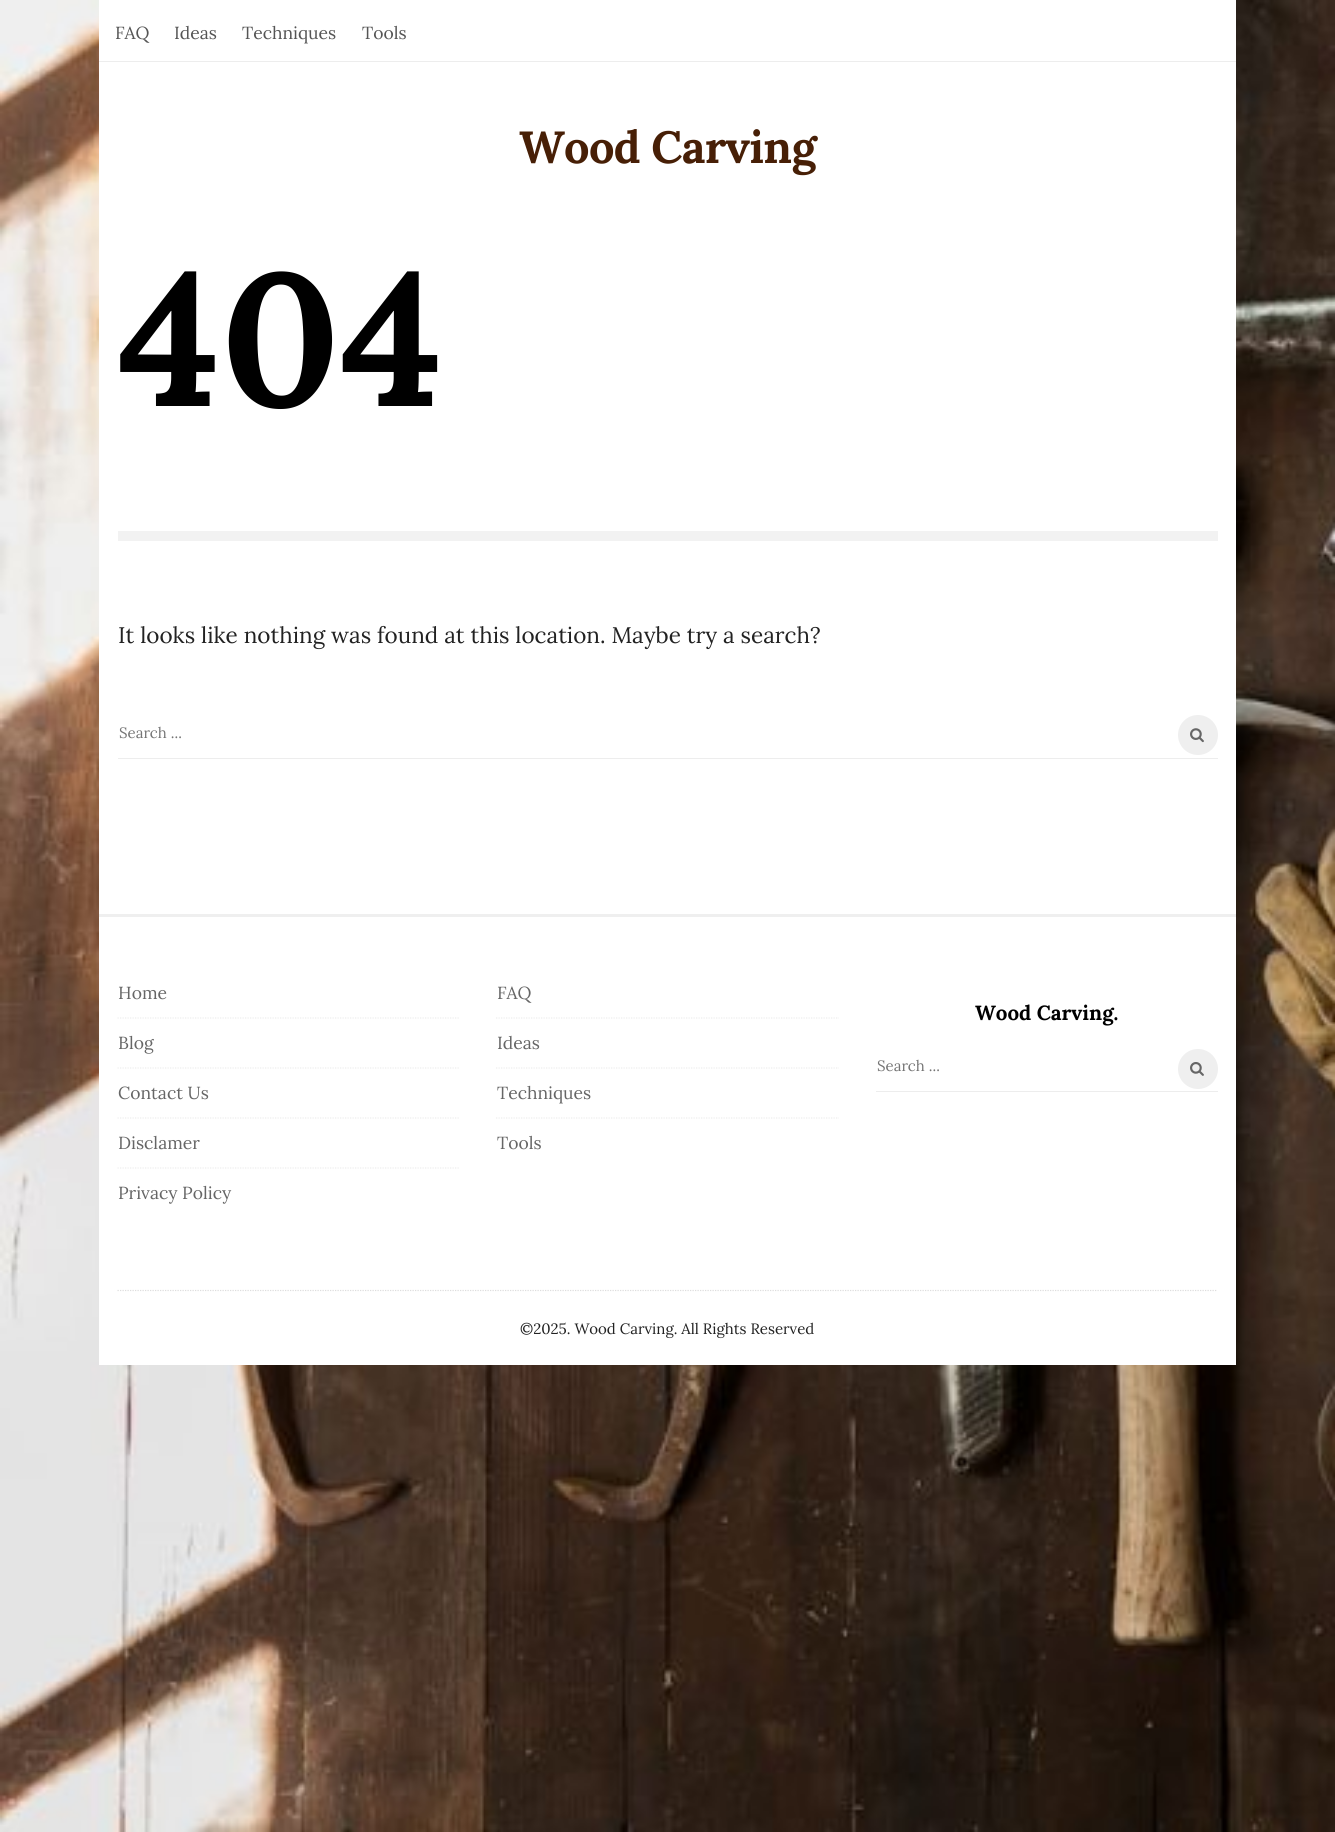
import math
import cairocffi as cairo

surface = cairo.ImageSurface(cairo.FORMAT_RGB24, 1335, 1832)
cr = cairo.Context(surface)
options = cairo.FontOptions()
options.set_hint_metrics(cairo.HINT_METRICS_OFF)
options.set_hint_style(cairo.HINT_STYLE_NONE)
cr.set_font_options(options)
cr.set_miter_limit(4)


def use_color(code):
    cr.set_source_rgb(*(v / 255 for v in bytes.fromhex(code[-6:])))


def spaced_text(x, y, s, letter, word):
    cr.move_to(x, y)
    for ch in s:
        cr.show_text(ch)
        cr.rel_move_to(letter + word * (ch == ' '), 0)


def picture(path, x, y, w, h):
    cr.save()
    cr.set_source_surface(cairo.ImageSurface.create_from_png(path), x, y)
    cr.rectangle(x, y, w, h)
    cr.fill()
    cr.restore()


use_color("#ffffff")
cr.paint()
picture("img1.png", 0, 0, 1335, 1832)
use_color("#ffffff")
cr.rectangle(99, 0, 1137, 1365)
cr.fill()
use_color("#ededed")
cr.rectangle(99, 61, 1137, 1)
cr.fill()
cr.select_font_face("Lora")
cr.set_font_size(17.5)
use_color("#555555")
cr.move_to(115, 39)
cr.show_text("FAQ")
cr.move_to(174, 39)
cr.show_text("Ideas")
cr.move_to(242, 39)
cr.show_text("Techniques")
cr.move_to(362, 39)
cr.show_text("Tools")
cr.select_font_face("Lora", cairo.FONT_SLANT_NORMAL, cairo.FONT_WEIGHT_BOLD)
cr.set_font_size(45)
use_color("#471f06")
spaced_text(519, 163, "Wood Carving", -0.6, 0)
use_color("#f2f2f2")
cr.rectangle(118, 531, 1100, 10)
cr.fill()
cr.set_font_size(188)
use_color("#000000")
cr.move_to(118, 406)
cr.show_text("404")
cr.select_font_face("Lora")
cr.set_font_size(22.5)
use_color("#222222")
cr.move_to(118, 643)
cr.show_text("It looks like nothing was found at this location. Maybe try a search?")
use_color("#ededed")
cr.rectangle(118, 758, 1100, 1)
cr.fill()
cr.set_font_size(15)
use_color("#757575")
cr.move_to(119, 738)
cr.show_text("Search ...")
use_color("#efefef")
cr.new_path()
cr.arc(1198, 735, 20, 0, 2 * math.pi)
cr.fill()
picture("img2.png", 1190, 728, 14, 15)
cr.rectangle(99, 914, 1137, 3)
cr.fill()
cr.new_path()
cr.move_to(117.5, 1018)
cr.line_to(459, 1018)
use_color("#ededed")
cr.set_line_width(1.2)
cr.set_dash([1.25, 1.25])
cr.stroke()
cr.set_font_size(17.5)
use_color("#666666")
cr.move_to(118, 999)
cr.show_text("Home")
cr.new_path()
cr.move_to(117.5, 1068)
cr.line_to(459, 1068)
use_color("#ededed")
cr.stroke()
use_color("#666666")
cr.move_to(118, 1049)
cr.show_text("Blog")
cr.new_path()
cr.move_to(117.5, 1118)
cr.line_to(459, 1118)
use_color("#ededed")
cr.stroke()
use_color("#666666")
cr.move_to(118, 1099)
cr.show_text("Contact Us")
cr.new_path()
cr.move_to(117.5, 1168)
cr.line_to(459, 1168)
use_color("#ededed")
cr.stroke()
use_color("#666666")
cr.move_to(118, 1149)
cr.show_text("Disclamer")
cr.move_to(118, 1199)
cr.show_text("Privacy Policy")
cr.new_path()
cr.move_to(496, 1018)
cr.line_to(839, 1018)
use_color("#ededed")
cr.stroke()
use_color("#666666")
cr.move_to(497, 999)
cr.show_text("FAQ")
cr.new_path()
cr.move_to(496, 1068)
cr.line_to(839, 1068)
use_color("#ededed")
cr.stroke()
use_color("#666666")
cr.move_to(497, 1049)
cr.show_text("Ideas")
cr.new_path()
cr.move_to(496, 1118)
cr.line_to(839, 1118)
use_color("#ededed")
cr.stroke()
use_color("#666666")
cr.move_to(497, 1099)
cr.show_text("Techniques")
cr.move_to(497, 1149)
cr.show_text("Tools")
cr.select_font_face("Lora", cairo.FONT_SLANT_NORMAL, cairo.FONT_WEIGHT_BOLD)
cr.set_font_size(20.5)
use_color("#000000")
cr.move_to(975, 1020)
cr.show_text("Wood Carving.")
use_color("#ededed")
cr.rectangle(876, 1091, 342, 1)
cr.fill()
cr.select_font_face("Lora")
cr.set_font_size(15)
use_color("#757575")
cr.move_to(877, 1071)
cr.show_text("Search ...")
use_color("#efefef")
cr.new_path()
cr.arc(1198, 1069, 20, 0, 2 * math.pi)
cr.fill()
picture("img3.png", 1190, 1062, 14, 14)
cr.new_path()
cr.move_to(117.5, 1290.5)
cr.line_to(1217.5, 1290.5)
use_color("#dddddd")
cr.stroke()
use_color("#222222")
cr.move_to(520, 1334)
cr.show_text("©2025. Wood Carving. All Rights Reserved")
surface.write_to_png("result.png")
